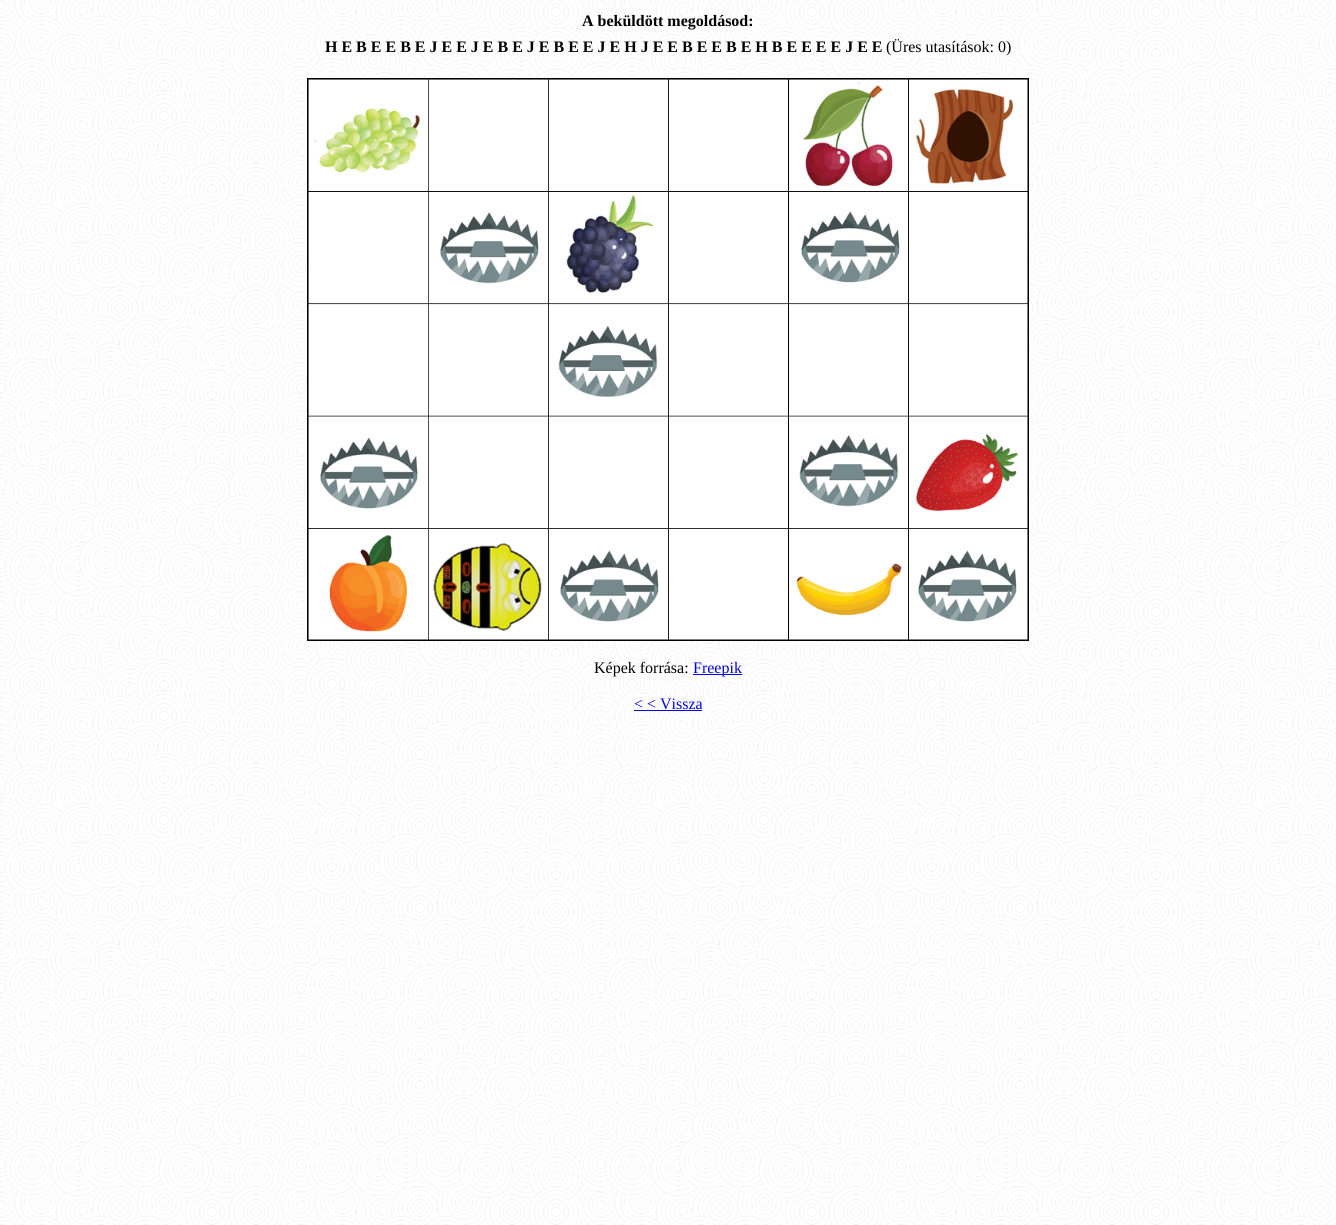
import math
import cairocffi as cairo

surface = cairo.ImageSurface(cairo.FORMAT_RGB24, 1336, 1225)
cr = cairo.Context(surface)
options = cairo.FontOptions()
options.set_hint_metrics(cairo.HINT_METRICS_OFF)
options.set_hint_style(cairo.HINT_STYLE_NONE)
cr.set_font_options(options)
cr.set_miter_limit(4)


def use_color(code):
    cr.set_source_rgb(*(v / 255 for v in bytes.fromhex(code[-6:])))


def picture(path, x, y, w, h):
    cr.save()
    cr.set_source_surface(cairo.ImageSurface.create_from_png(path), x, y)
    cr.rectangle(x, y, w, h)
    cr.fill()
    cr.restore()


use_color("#ffffff")
cr.paint()
picture("img1.png", 0, 0, 1336, 1225)
cr.select_font_face("Liberation Serif", cairo.FONT_SLANT_NORMAL, cairo.FONT_WEIGHT_BOLD)
cr.set_font_size(16)
use_color("#000000")
cr.move_to(582, 26)
cr.show_text("A beküldött megoldásod:")
cr.move_to(325, 52)
cr.show_text("H E B E E B E J E E J E B E J E B E E J E H J E E B E E B E H B E E E E J E E")
cr.select_font_face("Liberation Serif")
cr.move_to(886, 52)
cr.show_text("(Üres utasítások: 0)")
picture("img2.png", 307, 78, 722, 563)
picture("img3.png", 433, 542, 109, 90)
cr.move_to(594, 673)
cr.show_text("Képek forrása:")
use_color("#0000ee")
cr.rectangle(693, 674, 49, 1)
cr.fill()
cr.move_to(693, 673)
cr.show_text("Freepik")
cr.move_to(634, 709)
cr.show_text("< < Vissza")
cr.rectangle(634, 710, 68, 1)
cr.fill()
surface.write_to_png("result.png")
